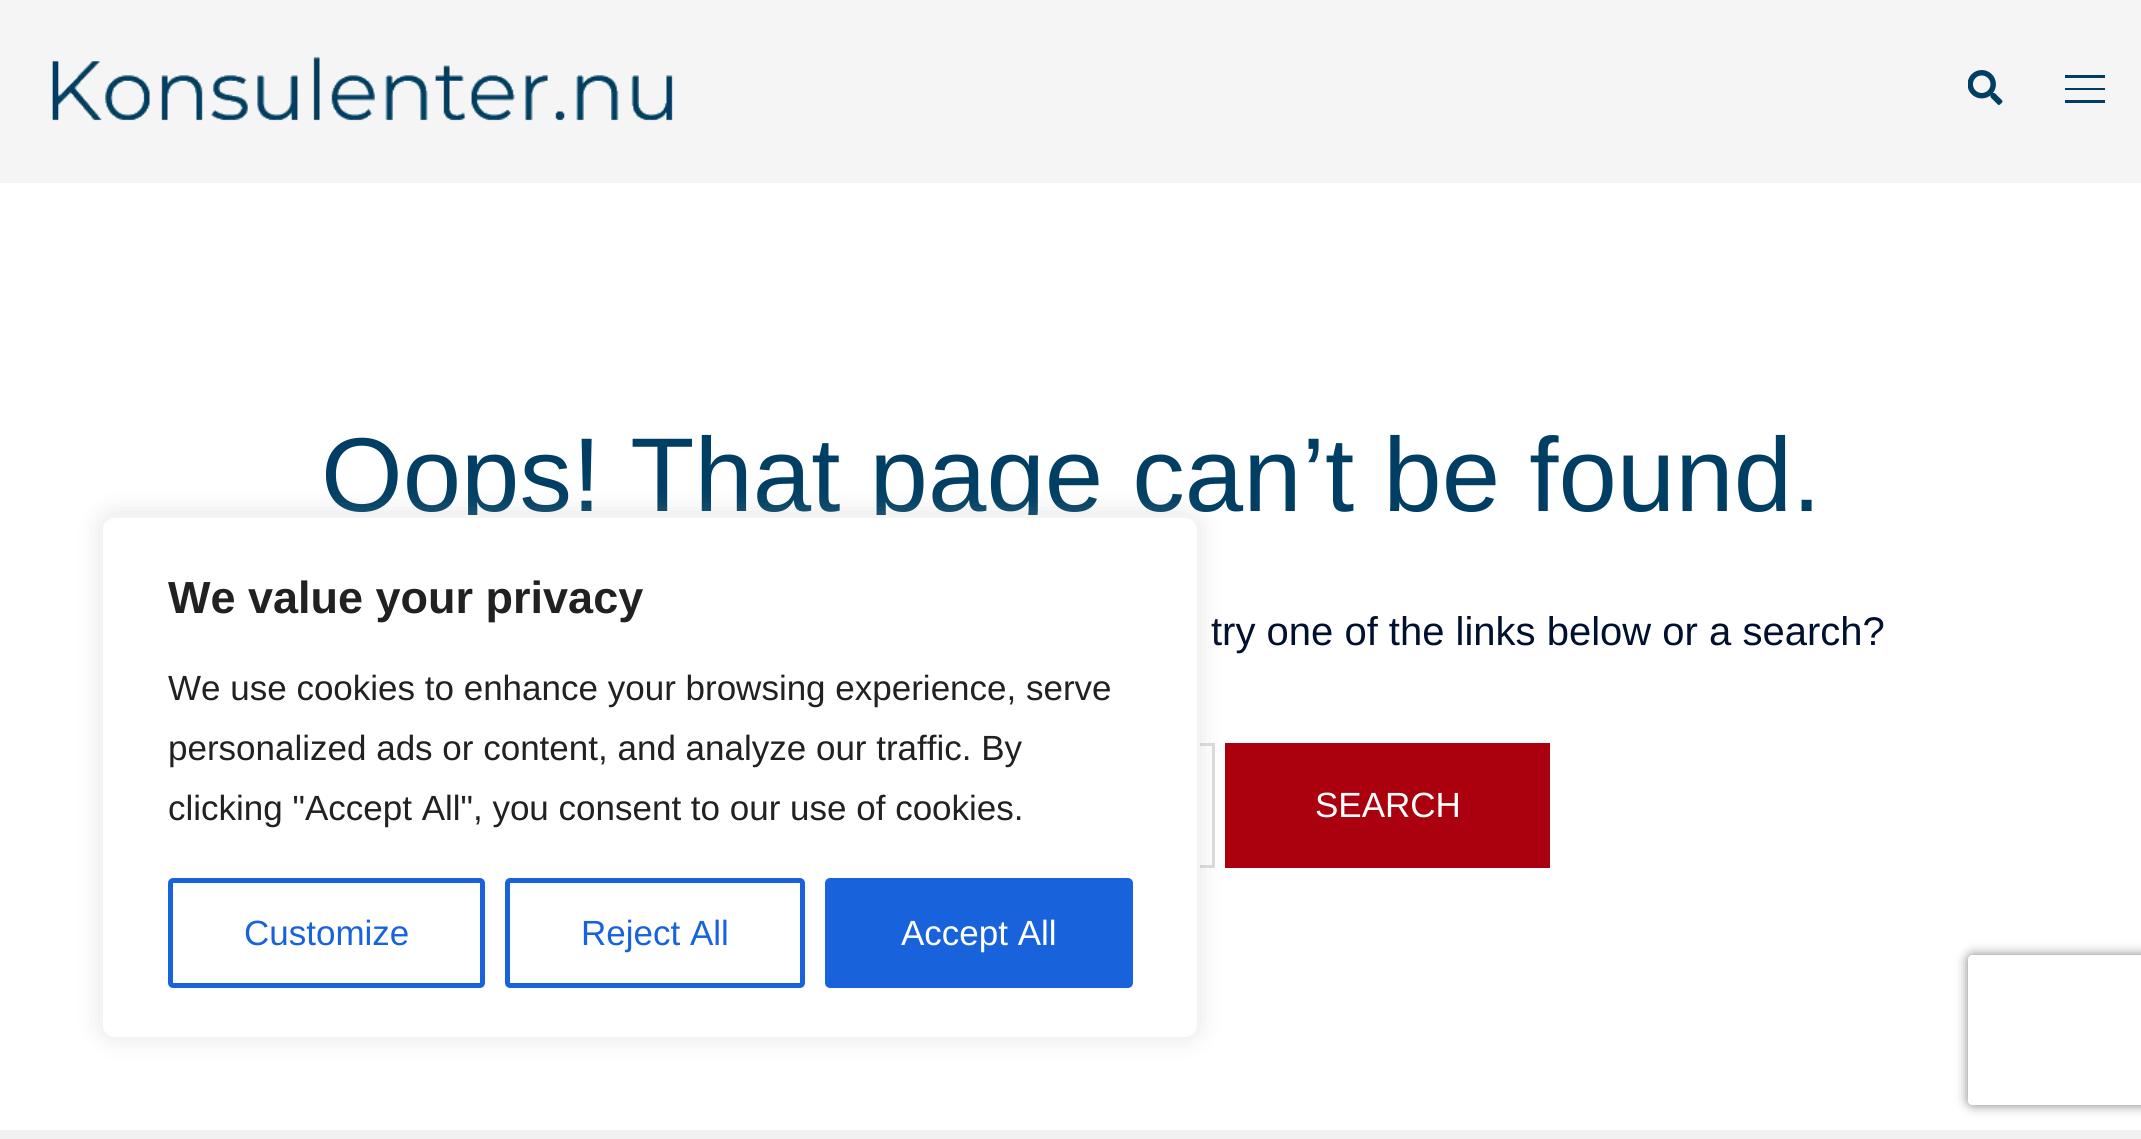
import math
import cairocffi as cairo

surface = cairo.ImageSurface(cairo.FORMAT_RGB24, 2141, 1139)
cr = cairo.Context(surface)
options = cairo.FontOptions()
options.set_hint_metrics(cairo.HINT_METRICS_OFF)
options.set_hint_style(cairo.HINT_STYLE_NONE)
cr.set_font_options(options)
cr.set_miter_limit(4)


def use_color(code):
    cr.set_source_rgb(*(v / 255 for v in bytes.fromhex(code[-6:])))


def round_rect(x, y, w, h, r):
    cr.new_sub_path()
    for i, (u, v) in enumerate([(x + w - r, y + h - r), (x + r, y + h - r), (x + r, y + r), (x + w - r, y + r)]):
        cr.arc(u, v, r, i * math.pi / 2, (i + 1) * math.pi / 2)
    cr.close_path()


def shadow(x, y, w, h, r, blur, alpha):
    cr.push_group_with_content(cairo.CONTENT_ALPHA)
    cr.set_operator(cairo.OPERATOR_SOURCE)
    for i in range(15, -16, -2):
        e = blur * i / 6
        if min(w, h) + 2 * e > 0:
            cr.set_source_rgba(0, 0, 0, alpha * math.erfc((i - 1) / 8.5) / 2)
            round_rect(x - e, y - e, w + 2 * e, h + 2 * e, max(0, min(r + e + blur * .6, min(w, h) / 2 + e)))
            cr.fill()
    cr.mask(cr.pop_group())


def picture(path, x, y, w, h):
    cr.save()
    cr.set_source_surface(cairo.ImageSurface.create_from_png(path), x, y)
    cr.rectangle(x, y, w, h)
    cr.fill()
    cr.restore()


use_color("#ffffff")
cr.paint()
use_color("#f5f5f5")
cr.rectangle(0, 0, 2141, 183)
cr.fill()
picture("img1.png", 52, 56, 621, 65)
picture("img2.png", 1968, 70, 35, 35)
use_color("#003f63")
cr.rectangle(2065, 75, 40, 3)
cr.fill()
cr.rectangle(2065, 88, 40, 2)
cr.fill()
cr.rectangle(2065, 100, 40, 3)
cr.fill()
cr.select_font_face("Liberation Sans")
cr.set_font_size(105)
cr.move_to(321, 511)
cr.show_text("Oops! That page can’t be found.")
cr.set_font_size(40)
use_color("#00102e")
cr.move_to(1211, 645)
cr.show_text("try one of the links below or a search?")
cr.rectangle(594.5, 744.5, 619, 122)
use_color("#dbdbdb")
cr.set_line_width(3)
cr.stroke()
use_color("#ab000d")
cr.rectangle(1225, 743, 325, 125)
cr.fill()
cr.set_font_size(35)
use_color("#ffffff")
cr.move_to(1315, 817)
cr.show_text("SEARCH")
use_color("#f1f1f1")
cr.rectangle(0, 1130, 2141, 9)
cr.fill()
use_color("#acabab")
shadow(100, 513, 1100, 525, 15, 12.5, 0.3)
use_color("#ffffff")
round_rect(101.5, 516.5, 1097, 522, 13.5)
cr.fill_preserve()
use_color("#f4f4f4")
cr.stroke()
cr.select_font_face("Liberation Sans", cairo.FONT_SLANT_NORMAL, cairo.FONT_WEIGHT_BOLD)
cr.set_font_size(45)
use_color("#212121")
cr.move_to(168, 613)
cr.show_text("We value your privacy")
cr.select_font_face("Liberation Sans")
cr.set_font_size(35)
cr.move_to(168, 700)
cr.show_text("We use cookies to enhance your browsing experience, serve")
cr.move_to(168, 760)
cr.show_text("personalized ads or content, and analyze our traffic. By")
cr.move_to(168, 820)
cr.show_text("clicking \"Accept All\", you consent to our use of cookies.")
round_rect(170.5, 880.5, 312, 105, 2.5)
use_color("#1863dc")
cr.set_line_width(5)
cr.stroke()
cr.move_to(244, 945)
cr.show_text("Customize")
round_rect(507.5, 880.5, 295, 105, 2.5)
cr.stroke()
cr.move_to(581, 945)
cr.show_text("Reject All")
round_rect(827.5, 880.5, 303, 105, 2.5)
cr.fill_preserve()
cr.stroke()
use_color("#ffffff")
cr.move_to(901, 945)
cr.show_text("Accept All")
cr.save()
cr.set_fill_rule(cairo.FILL_RULE_EVEN_ODD)
cr.new_path()
cr.move_to(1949, 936)
cr.line_to(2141, 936)
cr.line_to(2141, 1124)
cr.line_to(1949, 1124)
cr.close_path()
cr.move_to(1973, 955)
cr.line_to(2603, 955)
cr.curve_to(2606, 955, 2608, 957, 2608, 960)
cr.line_to(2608, 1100)
cr.curve_to(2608, 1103, 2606, 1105, 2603, 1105)
cr.line_to(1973, 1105)
cr.curve_to(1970, 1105, 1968, 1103, 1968, 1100)
cr.line_to(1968, 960)
cr.curve_to(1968, 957, 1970, 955, 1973, 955)
cr.close_path()
cr.clip()
use_color("#808080")
shadow(1968, 955, 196, 150, 5, 6, 1)
cr.restore()
surface.write_to_png("result.png")
